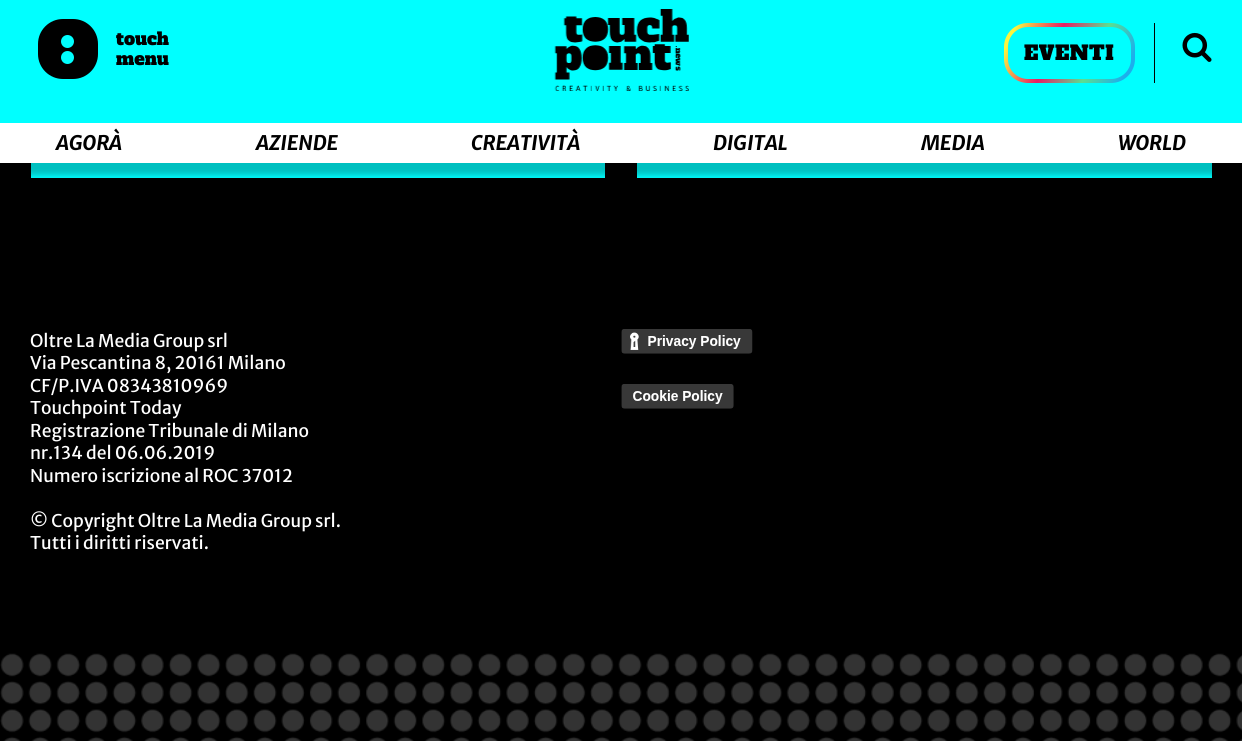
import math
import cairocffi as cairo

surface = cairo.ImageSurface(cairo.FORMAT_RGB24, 1242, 741)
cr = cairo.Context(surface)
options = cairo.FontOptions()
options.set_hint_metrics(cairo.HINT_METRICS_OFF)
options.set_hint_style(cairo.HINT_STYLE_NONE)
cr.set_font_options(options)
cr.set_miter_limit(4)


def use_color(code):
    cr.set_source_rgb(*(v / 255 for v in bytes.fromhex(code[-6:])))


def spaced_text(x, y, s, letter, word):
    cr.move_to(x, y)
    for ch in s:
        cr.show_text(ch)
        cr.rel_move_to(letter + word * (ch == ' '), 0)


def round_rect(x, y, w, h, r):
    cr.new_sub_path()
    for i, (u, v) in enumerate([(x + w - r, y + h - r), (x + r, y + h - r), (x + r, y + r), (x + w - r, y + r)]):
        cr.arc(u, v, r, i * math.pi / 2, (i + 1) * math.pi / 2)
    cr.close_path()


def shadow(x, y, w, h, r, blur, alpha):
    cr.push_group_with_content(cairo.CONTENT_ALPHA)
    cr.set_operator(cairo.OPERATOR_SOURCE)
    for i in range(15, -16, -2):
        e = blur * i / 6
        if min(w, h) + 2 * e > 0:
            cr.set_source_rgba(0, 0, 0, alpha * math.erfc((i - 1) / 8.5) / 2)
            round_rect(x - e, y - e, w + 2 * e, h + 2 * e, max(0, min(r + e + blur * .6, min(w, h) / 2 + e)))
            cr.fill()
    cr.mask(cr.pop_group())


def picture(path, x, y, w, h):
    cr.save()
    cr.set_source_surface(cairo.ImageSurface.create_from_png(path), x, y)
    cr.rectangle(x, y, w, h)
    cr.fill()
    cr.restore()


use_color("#000000")
cr.paint()
use_color("#00ffff")
cr.rectangle(31, 163, 574, 15)
cr.fill()
cr.rectangle(637, 163, 575, 15)
cr.fill()
use_color("#000000")
shadow(0, 13, 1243, 162, 0, 3, 0.25)
use_color("#00ffff")
cr.rectangle(0, 0, 1242, 123)
cr.fill()
picture("img1.png", 554, 9, 135, 82)
use_color("#000000")
round_rect(38, 19, 60, 60, 25)
cr.fill()
use_color("#00ffff")
cr.arc(67.5, 41.5, 6.5, 0, 2 * math.pi)
cr.fill()
cr.arc(67.5, 57.5, 6.5, 0, 2 * math.pi)
cr.fill()
cr.select_font_face("Alfa Slab One")
cr.set_font_size(17.5)
use_color("#000000")
cr.move_to(116, 45)
cr.show_text("touch")
cr.move_to(116, 65)
cr.show_text("menu")
cr.rectangle(1154, 23, 1, 60)
cr.fill()
round_rect(1006, 25, 127, 56, 22)
gradient = cairo.LinearGradient(1006, 47, 1114, 98)
gradient.add_color_stop_rgba(0, 0.98, 0.961, 0.247, 1)
gradient.add_color_stop_rgba(0.29, 0.922, 0.263, 0.369, 1)
gradient.add_color_stop_rgba(0.36, 0.91, 0.118, 0.396, 1)
gradient.add_color_stop_rgba(0.7, 0.365, 0.867, 0.565, 1)
gradient.add_color_stop_rgba(1, 0.114, 0.682, 0.925, 1)
cr.set_source(gradient)
cr.set_line_width(4)
cr.stroke()
cr.set_font_size(20)
use_color("#000000")
spaced_text(1024, 60, "EVENTI", 0.5, 0)
picture("img2.png", 1182, 32, 30, 30)
use_color("#ffffff")
cr.rectangle(0, 123, 1242, 40)
cr.fill()
cr.select_font_face("Merriweather Sans", cairo.FONT_SLANT_ITALIC, cairo.FONT_WEIGHT_BOLD)
use_color("#000000")
cr.move_to(56, 150)
cr.show_text("AGORÀ")
cr.move_to(256, 150)
cr.show_text("AZIENDE")
cr.move_to(471, 150)
cr.show_text("CREATIVITÀ")
cr.move_to(713, 150)
cr.show_text("DIGITAL")
cr.move_to(921, 150)
cr.show_text("MEDIA")
cr.move_to(1118, 150)
cr.show_text("WORLD")
picture("img3.png", 0, 653, 1242, 88)
cr.select_font_face("Merriweather Sans")
cr.set_font_size(17.5)
use_color("#ffffff")
cr.move_to(30, 347)
cr.show_text("Oltre La Media Group srl")
cr.move_to(30, 369)
cr.show_text("Via Pescantina 8, 20161 Milano")
cr.move_to(30, 392)
cr.show_text("CF/P.IVA 08343810969")
cr.move_to(30, 414)
cr.show_text("Touchpoint Today")
cr.move_to(30, 437)
cr.show_text("Registrazione Tribunale di Milano")
cr.move_to(30, 459)
cr.show_text("nr.134 del 06.06.2019")
cr.move_to(30, 482)
cr.show_text("Numero iscrizione al ROC 37012")
cr.move_to(30, 527)
cr.show_text("© Copyright Oltre La Media Group srl.")
cr.move_to(30, 549)
cr.show_text("Tutti i diritti riservati.")
picture("img4.png", 621, 329, 132, 25)
picture("img5.png", 621, 384, 113, 25)
surface.write_to_png("result.png")
